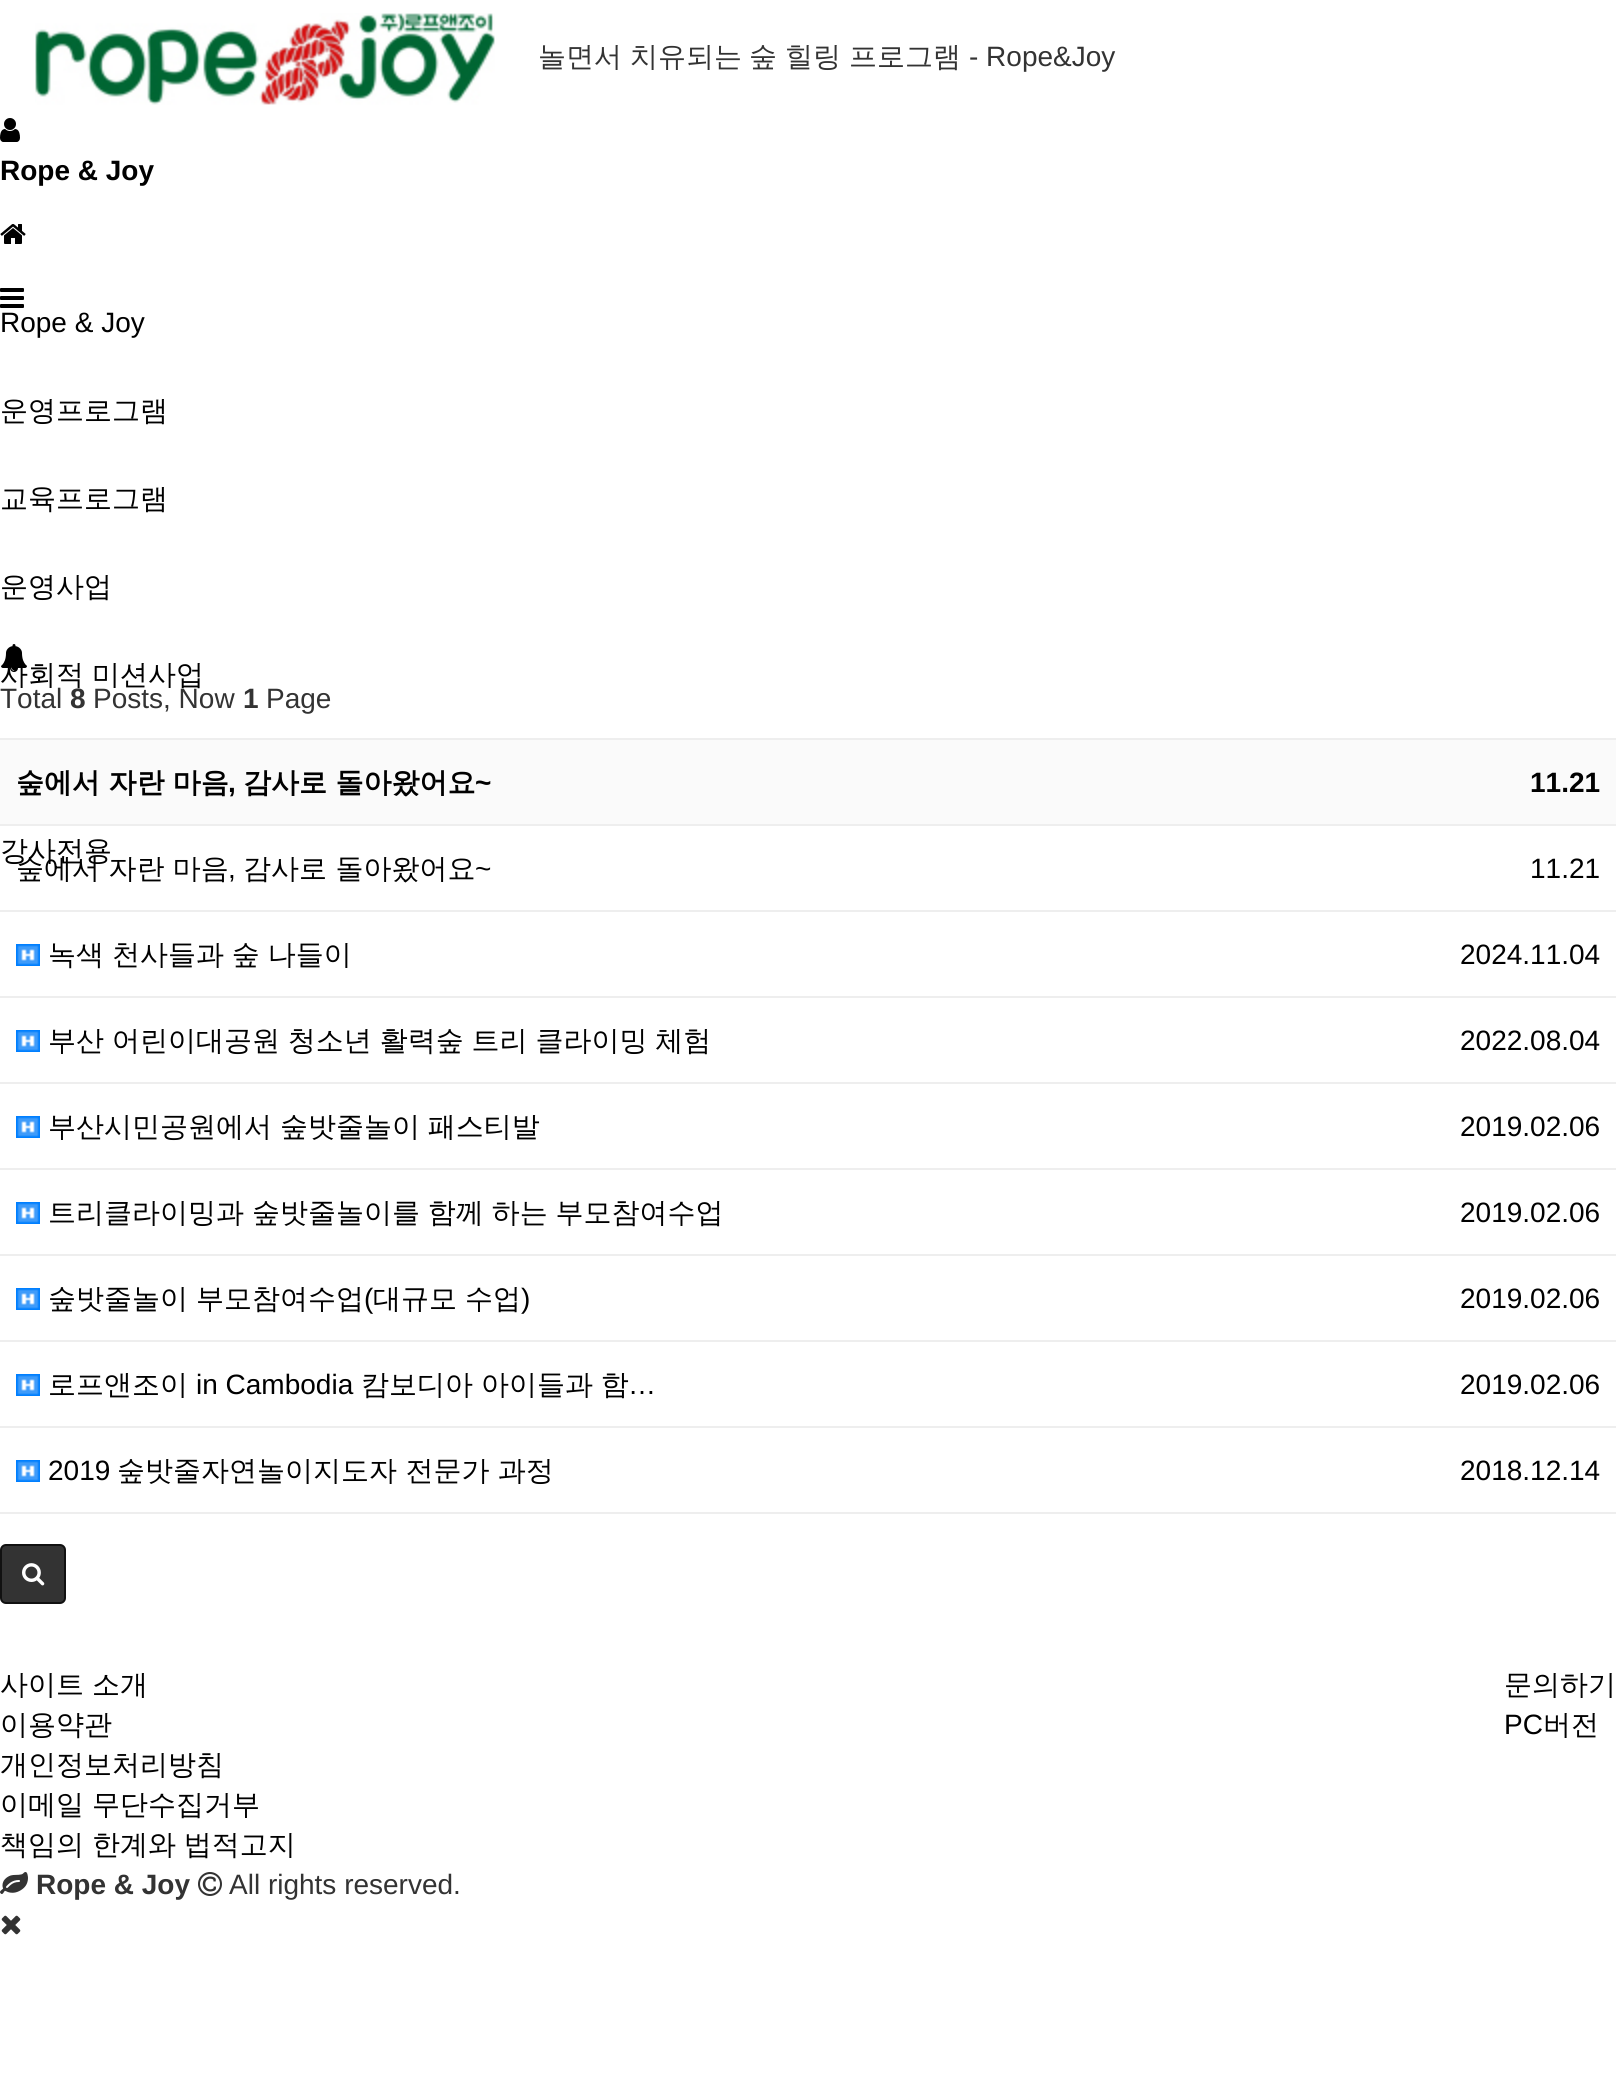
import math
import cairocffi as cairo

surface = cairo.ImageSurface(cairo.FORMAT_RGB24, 1616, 2094)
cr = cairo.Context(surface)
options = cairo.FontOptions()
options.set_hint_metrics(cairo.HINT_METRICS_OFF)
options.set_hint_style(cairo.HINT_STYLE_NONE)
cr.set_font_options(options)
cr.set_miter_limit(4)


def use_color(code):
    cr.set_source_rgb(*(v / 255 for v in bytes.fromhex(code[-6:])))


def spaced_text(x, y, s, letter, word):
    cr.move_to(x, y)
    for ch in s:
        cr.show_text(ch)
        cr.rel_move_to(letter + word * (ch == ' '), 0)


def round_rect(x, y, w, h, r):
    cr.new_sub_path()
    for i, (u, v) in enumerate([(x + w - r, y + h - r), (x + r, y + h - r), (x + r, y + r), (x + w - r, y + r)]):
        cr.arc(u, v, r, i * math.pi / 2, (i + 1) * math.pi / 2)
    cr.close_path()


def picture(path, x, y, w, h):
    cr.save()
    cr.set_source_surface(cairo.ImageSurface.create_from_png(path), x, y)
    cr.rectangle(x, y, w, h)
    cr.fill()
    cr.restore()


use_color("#ffffff")
cr.paint()
picture("img1.png", 35, 13, 460, 92)
cr.select_font_face("WenQuanYi Zen Hei Medium")
cr.set_font_size(28)
use_color("#333333")
cr.move_to(538, 66)
cr.show_text("놀면서")
cr.move_to(630, 66)
cr.show_text("치유되는")
cr.move_to(749, 66)
cr.show_text("숲")
cr.move_to(785, 66)
cr.show_text("힐링")
cr.move_to(849, 66)
cr.show_text("프로그램")
cr.select_font_face("Liberation Sans")
cr.move_to(969, 66)
cr.show_text("- Rope&Joy")
picture("img2.png", 0, 118, 20, 24)
cr.select_font_face("Liberation Sans", cairo.FONT_SLANT_NORMAL, cairo.FONT_WEIGHT_BOLD)
use_color("#000000")
cr.move_to(0, 180)
cr.show_text("Rope & Joy")
picture("img3.png", 0, 288, 24, 20)
cr.select_font_face("WenQuanYi Zen Hei Medium")
spaced_text(0, 684, "사회적 미션사업", 0, -0.5)
picture("img4.png", 1, 644, 26, 28)
picture("img5.png", 0, 224, 26, 20)
cr.select_font_face("Liberation Sans")
cr.move_to(0, 332)
cr.show_text("Rope & Joy")
cr.select_font_face("WenQuanYi Zen Hei Medium")
cr.move_to(0, 420)
cr.show_text("운영프로그램")
cr.move_to(0, 508)
cr.show_text("교육프로그램")
cr.move_to(0, 596)
cr.show_text("운영사업")
cr.move_to(0, 860)
cr.show_text("강사전용")
cr.select_font_face("Liberation Sans")
use_color("#333333")
cr.move_to(0, 708)
cr.show_text("Total")
cr.select_font_face("Liberation Sans", cairo.FONT_SLANT_NORMAL, cairo.FONT_WEIGHT_BOLD)
cr.move_to(70, 708)
cr.show_text("8")
cr.select_font_face("Liberation Sans")
cr.move_to(93, 708)
cr.show_text("Posts, Now")
cr.select_font_face("Liberation Sans", cairo.FONT_SLANT_NORMAL, cairo.FONT_WEIGHT_BOLD)
cr.move_to(243, 708)
cr.show_text("1")
cr.select_font_face("Liberation Sans")
cr.move_to(266, 708)
cr.show_text("Page")
use_color("#eeeeee")
cr.rectangle(0, 738, 1616, 2)
cr.fill()
use_color("#fafafa")
cr.rectangle(0, 740, 1616, 84)
cr.fill()
use_color("#eeeeee")
cr.rectangle(0, 824, 1616, 2)
cr.fill()
cr.select_font_face("WenQuanYi Zen Hei", cairo.FONT_SLANT_NORMAL, cairo.FONT_WEIGHT_BOLD)
use_color("#000000")
cr.move_to(16, 792)
cr.show_text("숲에서 자란 마음")
cr.move_to(243, 792)
cr.show_text("감사로 돌아왔어요")
cr.select_font_face("Liberation Sans", cairo.FONT_SLANT_NORMAL, cairo.FONT_WEIGHT_BOLD)
cr.move_to(475, 792)
cr.show_text("~")
cr.move_to(1530, 792)
cr.show_text("11.21")
cr.move_to(228, 792)
cr.show_text(",")
use_color("#eeeeee")
cr.rectangle(0, 910, 1616, 2)
cr.fill()
cr.select_font_face("WenQuanYi Zen Hei Medium")
use_color("#000000")
cr.move_to(16, 878)
cr.show_text("숲에서 자란 마음")
cr.move_to(243, 878)
cr.show_text("감사로 돌아왔어요")
cr.select_font_face("Liberation Sans")
cr.move_to(475, 878)
cr.show_text("~")
cr.move_to(1530, 878)
cr.show_text("11.21")
cr.move_to(228, 878)
cr.show_text(",")
use_color("#eeeeee")
cr.rectangle(0, 996, 1616, 2)
cr.fill()
picture("img6.png", 16, 944, 24, 22)
cr.select_font_face("WenQuanYi Zen Hei Medium")
use_color("#000000")
spaced_text(48, 964, "녹색 천사들과 숲 나들이", 0, -0.5)
cr.select_font_face("Liberation Sans")
cr.move_to(1460, 964)
cr.show_text("2024.11.04")
use_color("#eeeeee")
cr.rectangle(0, 1082, 1616, 2)
cr.fill()
picture("img6.png", 16, 1030, 24, 22)
cr.select_font_face("WenQuanYi Zen Hei Medium")
use_color("#000000")
spaced_text(48, 1050, "부산 어린이대공원 청소년 활력숲 트리 클라이밍 체험", 0, -0.5)
cr.select_font_face("Liberation Sans")
cr.move_to(1460, 1050)
cr.show_text("2022.08.04")
use_color("#eeeeee")
cr.rectangle(0, 1168, 1616, 2)
cr.fill()
picture("img6.png", 16, 1116, 24, 22)
cr.select_font_face("WenQuanYi Zen Hei Medium")
use_color("#000000")
spaced_text(48, 1136, "부산시민공원에서 숲밧줄놀이 패스티발", 0, -0.5)
cr.select_font_face("Liberation Sans")
cr.move_to(1460, 1136)
cr.show_text("2019.02.06")
use_color("#eeeeee")
cr.rectangle(0, 1254, 1616, 2)
cr.fill()
picture("img6.png", 16, 1202, 24, 22)
cr.select_font_face("WenQuanYi Zen Hei Medium")
use_color("#000000")
spaced_text(48, 1222, "트리클라이밍과 숲밧줄놀이를 함께 하는 부모참여수업", 0, -0.5)
cr.select_font_face("Liberation Sans")
cr.move_to(1460, 1222)
cr.show_text("2019.02.06")
use_color("#eeeeee")
cr.rectangle(0, 1340, 1616, 2)
cr.fill()
picture("img6.png", 16, 1288, 24, 22)
cr.select_font_face("WenQuanYi Zen Hei Medium")
use_color("#000000")
spaced_text(48, 1308, "숲밧줄놀이 부모참여수업", 0, -0.5)
cr.select_font_face("Liberation Sans")
cr.move_to(364, 1308)
cr.show_text("(")
cr.select_font_face("WenQuanYi Zen Hei Medium")
spaced_text(373, 1308, "대규모 수업", 0, -0.5)
cr.select_font_face("Liberation Sans")
cr.move_to(521, 1308)
cr.show_text(")")
cr.move_to(1460, 1308)
cr.show_text("2019.02.06")
use_color("#eeeeee")
cr.rectangle(0, 1426, 1616, 2)
cr.fill()
picture("img6.png", 16, 1374, 24, 22)
cr.select_font_face("WenQuanYi Zen Hei Medium")
use_color("#000000")
cr.move_to(48, 1394)
cr.show_text("로프앤조이")
cr.select_font_face("Liberation Sans")
cr.move_to(196, 1394)
cr.show_text("in Cambodia")
cr.select_font_face("WenQuanYi Zen Hei Medium")
spaced_text(361, 1394, "캄보디아 아이들과 함", 0, -0.5)
cr.select_font_face("Liberation Sans")
cr.move_to(628, 1394)
cr.show_text("…")
cr.move_to(1460, 1394)
cr.show_text("2019.02.06")
use_color("#eeeeee")
cr.rectangle(0, 1512, 1616, 2)
cr.fill()
picture("img6.png", 16, 1460, 24, 22)
use_color("#000000")
cr.move_to(48, 1480)
cr.show_text("2019")
cr.select_font_face("WenQuanYi Zen Hei Medium")
cr.move_to(117, 1480)
cr.show_text("숲밧줄자연놀이지도자 전문가 과정")
cr.select_font_face("Liberation Sans")
cr.move_to(1460, 1480)
cr.show_text("2018.12.14")
use_color("#333333")
round_rect(1, 1545, 64, 58, 5)
cr.fill_preserve()
use_color("#111111")
cr.stroke()
picture("img7.png", 22, 1563, 23, 23)
cr.select_font_face("WenQuanYi Zen Hei Medium")
use_color("#000000")
spaced_text(0, 1694, "사이트 소개", 0, -0.5)
cr.move_to(0, 1734)
cr.show_text("이용약관")
cr.move_to(0, 1774)
cr.show_text("개인정보처리방침")
spaced_text(0, 1814, "이메일 무단수집거부", 0, -0.5)
spaced_text(0, 1854, "책임의 한계와 법적고지", 0, -0.5)
cr.move_to(1504, 1694)
cr.show_text("문의하기")
cr.select_font_face("Liberation Sans")
cr.move_to(1504, 1734)
cr.show_text("PC")
cr.select_font_face("WenQuanYi Zen Hei Medium")
cr.move_to(1543, 1734)
cr.show_text("버전")
picture("img8.png", 0, 1872, 28, 22)
cr.select_font_face("Liberation Sans", cairo.FONT_SLANT_NORMAL, cairo.FONT_WEIGHT_BOLD)
use_color("#333333")
cr.move_to(36, 1894)
cr.show_text("Rope & Joy")
picture("img9.png", 198, 1872, 24, 24)
cr.select_font_face("Liberation Sans")
cr.move_to(229, 1894)
cr.show_text("All rights reserved.")
picture("img10.png", 1, 1915, 20, 20)
surface.write_to_png("result.png")
